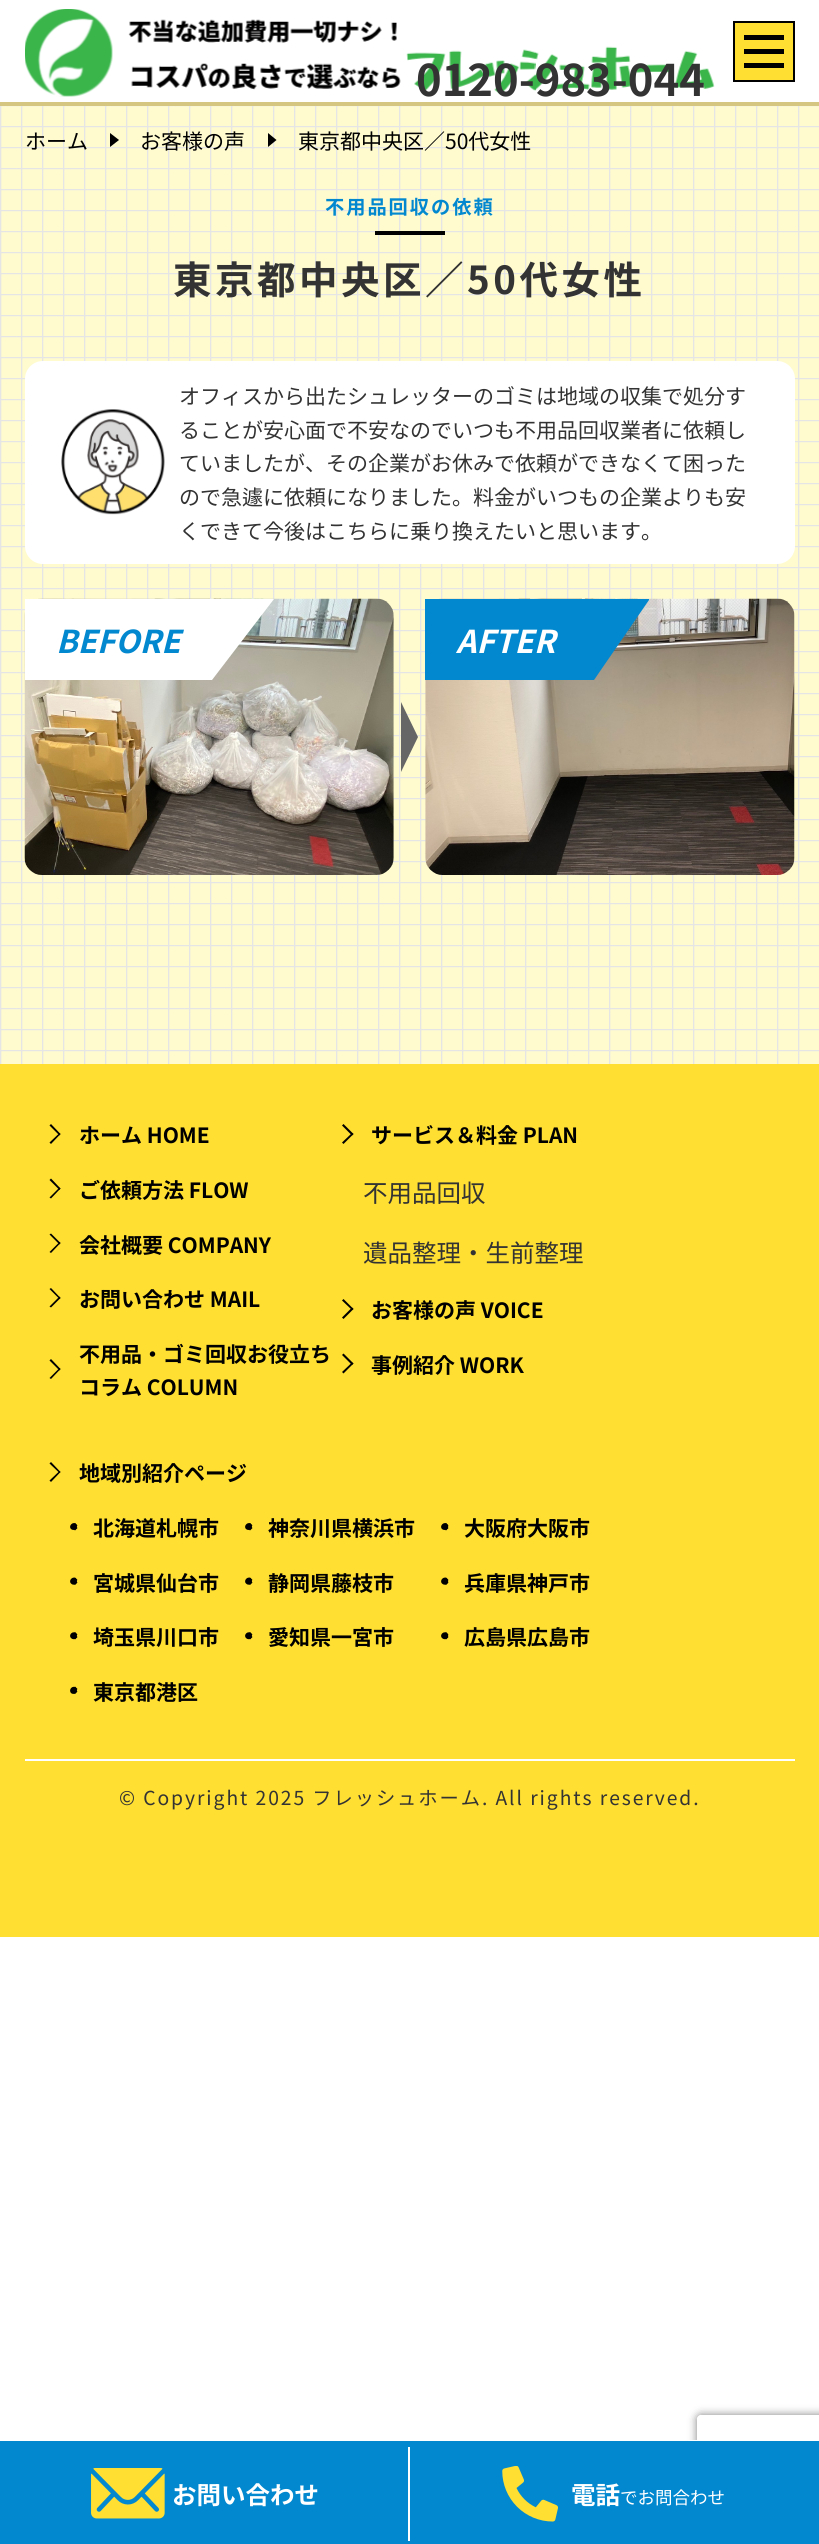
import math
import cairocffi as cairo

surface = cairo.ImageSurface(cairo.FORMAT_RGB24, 819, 2544)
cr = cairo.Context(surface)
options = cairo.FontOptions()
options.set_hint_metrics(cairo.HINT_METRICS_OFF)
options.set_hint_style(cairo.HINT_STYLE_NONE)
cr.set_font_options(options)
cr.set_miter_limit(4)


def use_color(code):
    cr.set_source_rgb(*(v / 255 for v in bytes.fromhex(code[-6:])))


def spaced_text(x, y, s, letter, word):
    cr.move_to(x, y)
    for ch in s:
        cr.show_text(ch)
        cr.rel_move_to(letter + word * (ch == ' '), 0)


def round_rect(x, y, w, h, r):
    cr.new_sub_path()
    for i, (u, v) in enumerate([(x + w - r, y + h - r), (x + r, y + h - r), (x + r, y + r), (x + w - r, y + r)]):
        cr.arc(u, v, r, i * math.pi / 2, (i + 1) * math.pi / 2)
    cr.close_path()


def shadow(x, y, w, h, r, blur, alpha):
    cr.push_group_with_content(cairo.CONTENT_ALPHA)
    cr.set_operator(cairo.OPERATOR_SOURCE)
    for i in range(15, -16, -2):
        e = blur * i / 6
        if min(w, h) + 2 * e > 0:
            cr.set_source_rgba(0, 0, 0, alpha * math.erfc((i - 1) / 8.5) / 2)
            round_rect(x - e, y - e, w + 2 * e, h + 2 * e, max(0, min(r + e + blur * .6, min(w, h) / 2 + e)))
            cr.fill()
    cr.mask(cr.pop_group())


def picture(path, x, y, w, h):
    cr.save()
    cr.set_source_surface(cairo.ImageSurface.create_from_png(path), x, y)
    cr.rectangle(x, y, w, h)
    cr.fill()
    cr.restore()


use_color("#ffffff")
cr.paint()
use_color("#d5c681")
cr.rectangle(0, 102, 819, 4)
cr.fill()
picture("img1.png", 25, 9, 690, 88)
cr.select_font_face("Noto Sans JP", cairo.FONT_SLANT_NORMAL, cairo.FONT_WEIGHT_BOLD)
cr.set_font_size(43.5)
use_color("#333333")
cr.move_to(416, 96)
cr.show_text("0120-983-044")
use_color("#ffdf32")
cr.rectangle(734, 22, 60, 59)
cr.fill_preserve()
use_color("#000000")
cr.stroke()
cr.rectangle(744, 35, 40, 5)
cr.fill()
cr.rectangle(744, 49, 40, 5)
cr.fill()
cr.rectangle(744, 63, 40, 5)
cr.fill()
use_color("#fffbcf")
cr.rectangle(1, 106, 818, 958)
cr.fill()
picture("img2.png", 0, 106, 819, 958)
cr.select_font_face("Noto Sans JP")
cr.set_font_size(21)
use_color("#000000")
cr.move_to(25, 149)
cr.show_text("ホーム")
cr.new_path()
cr.move_to(110, 147)
cr.line_to(110, 133)
cr.line_to(119, 140)
cr.close_path()
cr.fill()
cr.move_to(140, 149)
cr.show_text("お客様の声")
cr.new_path()
cr.move_to(268, 147)
cr.line_to(268, 133)
cr.line_to(276.5, 140)
cr.close_path()
cr.fill()
cr.move_to(298, 149)
cr.show_text("東京都中央区／50代女性")
cr.select_font_face("Noto Sans JP", cairo.FONT_SLANT_NORMAL, cairo.FONT_WEIGHT_BOLD)
cr.set_font_size(19.25)
use_color("#0288cf")
spaced_text(325, 214, "不用品回収の依頼", 1.95, 0)
use_color("#000000")
cr.rectangle(375, 231, 70, 4)
cr.fill()
cr.set_font_size(38.5)
use_color("#333333")
spaced_text(173, 294, "東京都中央区／50代女性", 3.5, 0)
use_color("#ffffff")
round_rect(25, 361, 770, 203, 18)
cr.fill()
picture("img3.png", 61, 409, 104, 106)
cr.select_font_face("Noto Sans JP")
cr.set_font_size(21)
use_color("#333333")
cr.move_to(179, 404)
cr.show_text("オフィスから出たシュレッターのゴミは地域の収集で処分す")
cr.move_to(179, 438)
cr.show_text("ることが安心面で不安なのでいつも不用品回収業者に依頼し")
cr.move_to(179, 471)
cr.show_text("ていましたが、その企業がお休みで依頼ができなくて困った")
cr.move_to(179, 505)
cr.show_text("ので急遽に依頼になりました。料金がいつもの企業よりも安")
cr.move_to(179, 539)
cr.show_text("くできて今後はこちらに乗り換えたいと思います。")
picture("img4.png", 24, 598, 370, 277)
use_color("#ffffff")
cr.new_path()
cr.move_to(25, 599)
cr.line_to(274, 599)
cr.line_to(212, 680)
cr.line_to(25, 680)
cr.close_path()
cr.fill()
cr.select_font_face("Noto Sans JP", cairo.FONT_SLANT_ITALIC, cairo.FONT_WEIGHT_BOLD)
cr.set_font_size(31.5)
use_color("#0288cf")
cr.move_to(56, 653)
cr.show_text("BEFORE")
picture("img5.png", 425, 598, 370, 277)
cr.new_path()
cr.move_to(425, 599)
cr.line_to(649, 599)
cr.line_to(649, 600)
cr.line_to(594, 680)
cr.line_to(425, 680)
cr.close_path()
cr.fill()
use_color("#ffffff")
cr.move_to(456, 653)
cr.show_text("AFTER")
use_color("#666666")
cr.new_path()
cr.move_to(401, 772)
cr.line_to(401, 702)
cr.line_to(418, 737)
cr.close_path()
cr.fill()
use_color("#ffdf32")
cr.rectangle(0, 1064, 819, 873)
cr.fill()
use_color("#000000")
cr.new_path()
cr.move_to(51, 1124)
cr.line_to(60.5, 1134)
cr.line_to(59.5, 1135.5)
cr.line_to(49.5, 1125.5)
cr.close_path()
cr.fill()
cr.new_path()
cr.move_to(59.5, 1133)
cr.line_to(60.5, 1134)
cr.line_to(51, 1144)
cr.line_to(49.5, 1142.5)
cr.close_path()
cr.fill()
cr.select_font_face("Noto Sans JP", cairo.FONT_SLANT_NORMAL, cairo.FONT_WEIGHT_BOLD)
cr.set_font_size(21)
cr.move_to(79, 1143)
cr.show_text("ホーム HOME")
cr.new_path()
cr.move_to(51, 1178.5)
cr.line_to(60.5, 1188.5)
cr.line_to(59.5, 1190)
cr.line_to(49.5, 1180)
cr.close_path()
cr.fill()
cr.new_path()
cr.move_to(59.5, 1187.5)
cr.line_to(60.5, 1188.5)
cr.line_to(51, 1198.5)
cr.line_to(49.5, 1197.5)
cr.close_path()
cr.fill()
cr.move_to(79, 1198)
cr.show_text("ご依頼方法 FLOW")
cr.new_path()
cr.move_to(51, 1233.5)
cr.line_to(60.5, 1243)
cr.line_to(59.5, 1244.5)
cr.line_to(49.5, 1234.5)
cr.close_path()
cr.fill()
cr.new_path()
cr.move_to(59.5, 1242)
cr.line_to(60.5, 1243)
cr.line_to(51, 1253)
cr.line_to(49.5, 1252)
cr.close_path()
cr.fill()
cr.move_to(79, 1253)
cr.show_text("会社概要 COMPANY")
cr.new_path()
cr.move_to(51, 1288)
cr.line_to(60.5, 1298)
cr.line_to(59.5, 1299)
cr.line_to(49.5, 1289)
cr.close_path()
cr.fill()
cr.new_path()
cr.move_to(59.5, 1296.5)
cr.line_to(60.5, 1298)
cr.line_to(51, 1307.5)
cr.line_to(49.5, 1306.5)
cr.close_path()
cr.fill()
cr.move_to(79, 1307)
cr.show_text("お問い合わせ MAIL")
cr.move_to(79, 1362)
cr.show_text("不用品・ゴミ回収お役立ち")
cr.new_path()
cr.move_to(51, 1359)
cr.line_to(60.5, 1369)
cr.line_to(59.5, 1370.5)
cr.line_to(49.5, 1360.5)
cr.close_path()
cr.fill()
cr.new_path()
cr.move_to(59.5, 1368)
cr.line_to(60.5, 1369)
cr.line_to(51, 1379)
cr.line_to(49.5, 1378)
cr.close_path()
cr.fill()
cr.move_to(79, 1395)
cr.show_text("コラム COLUMN")
cr.new_path()
cr.move_to(343.5, 1124)
cr.line_to(353.5, 1134)
cr.line_to(352, 1135.5)
cr.line_to(342, 1125.5)
cr.close_path()
cr.fill()
cr.new_path()
cr.move_to(352, 1133)
cr.line_to(353.5, 1134)
cr.line_to(343.5, 1144)
cr.line_to(342, 1142.5)
cr.close_path()
cr.fill()
cr.move_to(371, 1143)
cr.show_text("サービス＆料金 PLAN")
cr.select_font_face("Noto Sans JP")
cr.set_font_size(24.5)
use_color("#333333")
cr.move_to(363, 1202)
cr.show_text("不用品回収")
cr.move_to(363, 1262)
cr.show_text("遺品整理・生前整理")
use_color("#000000")
cr.new_path()
cr.move_to(343.5, 1299)
cr.line_to(353.5, 1309)
cr.line_to(352, 1310)
cr.line_to(342, 1300.5)
cr.close_path()
cr.fill()
cr.new_path()
cr.move_to(352, 1307.5)
cr.line_to(353.5, 1309)
cr.line_to(343.5, 1319)
cr.line_to(342, 1317.5)
cr.close_path()
cr.fill()
cr.select_font_face("Noto Sans JP", cairo.FONT_SLANT_NORMAL, cairo.FONT_WEIGHT_BOLD)
cr.set_font_size(21)
cr.move_to(371, 1318)
cr.show_text("お客様の声 VOICE")
cr.new_path()
cr.move_to(343.5, 1353.5)
cr.line_to(353.5, 1363.5)
cr.line_to(352, 1365)
cr.line_to(342, 1355)
cr.close_path()
cr.fill()
cr.new_path()
cr.move_to(352, 1362.5)
cr.line_to(353.5, 1363.5)
cr.line_to(343.5, 1373.5)
cr.line_to(342, 1372)
cr.close_path()
cr.fill()
cr.move_to(371, 1373)
cr.show_text("事例紹介 WORK")
cr.new_path()
cr.move_to(51, 1462)
cr.line_to(60.5, 1472)
cr.line_to(59.5, 1473)
cr.line_to(49.5, 1463.5)
cr.close_path()
cr.fill()
cr.new_path()
cr.move_to(59.5, 1471)
cr.line_to(60.5, 1472)
cr.line_to(51, 1482)
cr.line_to(49.5, 1480.5)
cr.close_path()
cr.fill()
cr.move_to(79, 1481)
cr.show_text("地域別紹介ページ")
cr.new_path()
cr.move_to(76, 1524)
cr.curve_to(79, 1527.5, 74.5, 1532, 71, 1529)
cr.curve_to(68, 1526, 73, 1521, 76, 1524)
cr.close_path()
cr.fill()
cr.new_path()
cr.move_to(75, 1523)
cr.line_to(77.5, 1525.5)
cr.line_to(76, 1526.5)
cr.line_to(73.5, 1524)
cr.close_path()
cr.fill()
cr.new_path()
cr.move_to(76, 1526.5)
cr.line_to(77.5, 1528)
cr.line_to(75, 1530.5)
cr.line_to(73.5, 1529)
cr.close_path()
cr.fill()
cr.move_to(93, 1536)
cr.show_text("北海道札幌市")
cr.new_path()
cr.move_to(76, 1578.5)
cr.curve_to(79, 1582, 74.5, 1587, 71, 1583.5)
cr.curve_to(68, 1580.5, 73, 1575.5, 76, 1578.5)
cr.close_path()
cr.fill()
cr.new_path()
cr.move_to(75, 1577.5)
cr.line_to(77.5, 1580)
cr.line_to(76, 1581)
cr.line_to(73.5, 1578.5)
cr.close_path()
cr.move_to(76, 1581)
cr.line_to(77.5, 1582.5)
cr.line_to(75, 1585)
cr.line_to(73.5, 1583.5)
cr.close_path()
cr.fill()
cr.move_to(93, 1591)
cr.show_text("宮城県仙台市")
cr.new_path()
cr.move_to(76, 1633.5)
cr.curve_to(79, 1636.5, 74.5, 1641.5, 71, 1638)
cr.curve_to(68, 1635, 73, 1630, 76, 1633.5)
cr.close_path()
cr.fill()
cr.new_path()
cr.move_to(75, 1632)
cr.line_to(77.5, 1634.5)
cr.line_to(76, 1635.5)
cr.line_to(73.5, 1633.5)
cr.close_path()
cr.fill()
cr.new_path()
cr.move_to(76, 1635.5)
cr.line_to(77.5, 1637)
cr.line_to(75, 1639.5)
cr.line_to(73.5, 1638)
cr.close_path()
cr.fill()
cr.move_to(93, 1645)
cr.show_text("埼玉県川口市")
cr.new_path()
cr.move_to(76, 1688)
cr.curve_to(79, 1691, 74.5, 1696, 71, 1693)
cr.curve_to(68, 1689.5, 73, 1684.5, 76, 1688)
cr.close_path()
cr.fill()
cr.new_path()
cr.move_to(75, 1686.5)
cr.line_to(77.5, 1689)
cr.line_to(76, 1690.5)
cr.line_to(73.5, 1688)
cr.close_path()
cr.fill()
cr.new_path()
cr.move_to(76, 1690.5)
cr.line_to(77.5, 1691.5)
cr.line_to(75, 1694)
cr.line_to(73.5, 1693)
cr.close_path()
cr.fill()
cr.move_to(93, 1700)
cr.show_text("東京都港区")
cr.new_path()
cr.move_to(251, 1524)
cr.curve_to(254, 1527.5, 249.5, 1532, 246, 1529)
cr.curve_to(243, 1526, 248, 1521, 251, 1524)
cr.close_path()
cr.fill()
cr.new_path()
cr.move_to(250, 1523)
cr.line_to(252.5, 1525.5)
cr.line_to(251, 1526.5)
cr.line_to(248.5, 1524)
cr.close_path()
cr.fill()
cr.new_path()
cr.move_to(251, 1526.5)
cr.line_to(252.5, 1528)
cr.line_to(250, 1530.5)
cr.line_to(248.5, 1529)
cr.close_path()
cr.fill()
cr.move_to(268, 1536)
cr.show_text("神奈川県横浜市")
cr.new_path()
cr.move_to(251, 1578.5)
cr.curve_to(254, 1582, 249.5, 1587, 246, 1583.5)
cr.curve_to(243, 1580.5, 248, 1575.5, 251, 1578.5)
cr.close_path()
cr.fill()
cr.new_path()
cr.move_to(250, 1577.5)
cr.line_to(252.5, 1580)
cr.line_to(251, 1581)
cr.line_to(248.5, 1578.5)
cr.close_path()
cr.move_to(251, 1581)
cr.line_to(252.5, 1582.5)
cr.line_to(250, 1585)
cr.line_to(248.5, 1583.5)
cr.close_path()
cr.fill()
cr.move_to(268, 1591)
cr.show_text("静岡県藤枝市")
cr.new_path()
cr.move_to(251, 1633.5)
cr.curve_to(254, 1636.5, 249.5, 1641.5, 246, 1638)
cr.curve_to(243, 1635, 248, 1630, 251, 1633.5)
cr.close_path()
cr.fill()
cr.new_path()
cr.move_to(250, 1632)
cr.line_to(252.5, 1634.5)
cr.line_to(251, 1635.5)
cr.line_to(248.5, 1633.5)
cr.close_path()
cr.fill()
cr.new_path()
cr.move_to(251, 1635.5)
cr.line_to(252.5, 1637)
cr.line_to(250, 1639.5)
cr.line_to(248.5, 1638)
cr.close_path()
cr.fill()
cr.move_to(268, 1645)
cr.show_text("愛知県一宮市")
cr.new_path()
cr.move_to(447, 1524)
cr.curve_to(450.5, 1527.5, 445.5, 1532, 442, 1529)
cr.curve_to(439, 1526, 444, 1521, 447, 1524)
cr.close_path()
cr.fill()
cr.new_path()
cr.move_to(446, 1523)
cr.line_to(448.5, 1525.5)
cr.line_to(447, 1526.5)
cr.line_to(444.5, 1524)
cr.close_path()
cr.fill()
cr.new_path()
cr.move_to(447, 1526.5)
cr.line_to(448.5, 1528)
cr.line_to(446, 1530.5)
cr.line_to(444.5, 1529)
cr.close_path()
cr.fill()
cr.move_to(464, 1536)
cr.show_text("大阪府大阪市")
cr.new_path()
cr.move_to(447, 1578.5)
cr.curve_to(450.5, 1582, 445.5, 1587, 442, 1583.5)
cr.curve_to(439, 1580.5, 444, 1575.5, 447, 1578.5)
cr.close_path()
cr.fill()
cr.new_path()
cr.move_to(446, 1577.5)
cr.line_to(448.5, 1580)
cr.line_to(447, 1581)
cr.line_to(444.5, 1578.5)
cr.close_path()
cr.move_to(447, 1581)
cr.line_to(448.5, 1582.5)
cr.line_to(446, 1585)
cr.line_to(444.5, 1583.5)
cr.close_path()
cr.fill()
cr.move_to(464, 1591)
cr.show_text("兵庫県神戸市")
cr.new_path()
cr.move_to(447, 1633.5)
cr.curve_to(450.5, 1636.5, 445.5, 1641.5, 442, 1638)
cr.curve_to(439, 1635, 444, 1630, 447, 1633.5)
cr.close_path()
cr.fill()
cr.new_path()
cr.move_to(446, 1632)
cr.line_to(448.5, 1634.5)
cr.line_to(447, 1635.5)
cr.line_to(444.5, 1633.5)
cr.close_path()
cr.fill()
cr.new_path()
cr.move_to(447, 1635.5)
cr.line_to(448.5, 1637)
cr.line_to(446, 1639.5)
cr.line_to(444.5, 1638)
cr.close_path()
cr.fill()
cr.move_to(464, 1645)
cr.show_text("広島県広島市")
use_color("#ffffff")
cr.rectangle(25, 1759, 770, 2)
cr.fill()
cr.select_font_face("Noto Sans JP")
cr.set_font_size(19.25)
use_color("#333333")
spaced_text(119, 1805, "© Copyright 2025 フレッシュホーム. All rights reserved.", 1.95, 0)
cr.save()
cr.set_fill_rule(cairo.FILL_RULE_EVEN_ODD)
cr.new_path()
cr.move_to(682, 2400)
cr.line_to(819, 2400)
cr.line_to(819, 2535)
cr.line_to(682, 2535)
cr.close_path()
cr.move_to(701, 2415)
cr.line_to(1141, 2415)
cr.curve_to(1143, 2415, 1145, 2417, 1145, 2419)
cr.line_to(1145, 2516)
cr.curve_to(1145, 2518, 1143, 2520, 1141, 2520)
cr.line_to(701, 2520)
cr.curve_to(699, 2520, 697, 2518, 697, 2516)
cr.line_to(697, 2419)
cr.curve_to(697, 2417, 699, 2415, 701, 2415)
cr.close_path()
cr.clip()
use_color("#808080")
shadow(697, 2415, 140, 105, 4, 4.5, 1)
cr.restore()
use_color("#ffffff")
cr.rectangle(688, 2440, 9, 1)
cr.fill()
use_color("#0288cf")
cr.rectangle(0, 2441, 819, 103)
cr.fill()
picture("img6.png", 91, 2468, 74, 51)
cr.select_font_face("Noto Sans JP", cairo.FONT_SLANT_NORMAL, cairo.FONT_WEIGHT_BOLD)
cr.set_font_size(24.5)
use_color("#ffffff")
cr.move_to(172, 2504)
cr.show_text("お問い合わせ")
cr.rectangle(408, 2447, 2, 94)
cr.fill()
picture("img7.png", 502, 2466, 56, 56)
cr.move_to(571, 2504)
cr.show_text("電話")
cr.select_font_face("Noto Sans JP")
cr.set_font_size(17.5)
cr.move_to(620, 2504)
cr.show_text("でお問合わせ")
surface.write_to_png("result.png")
